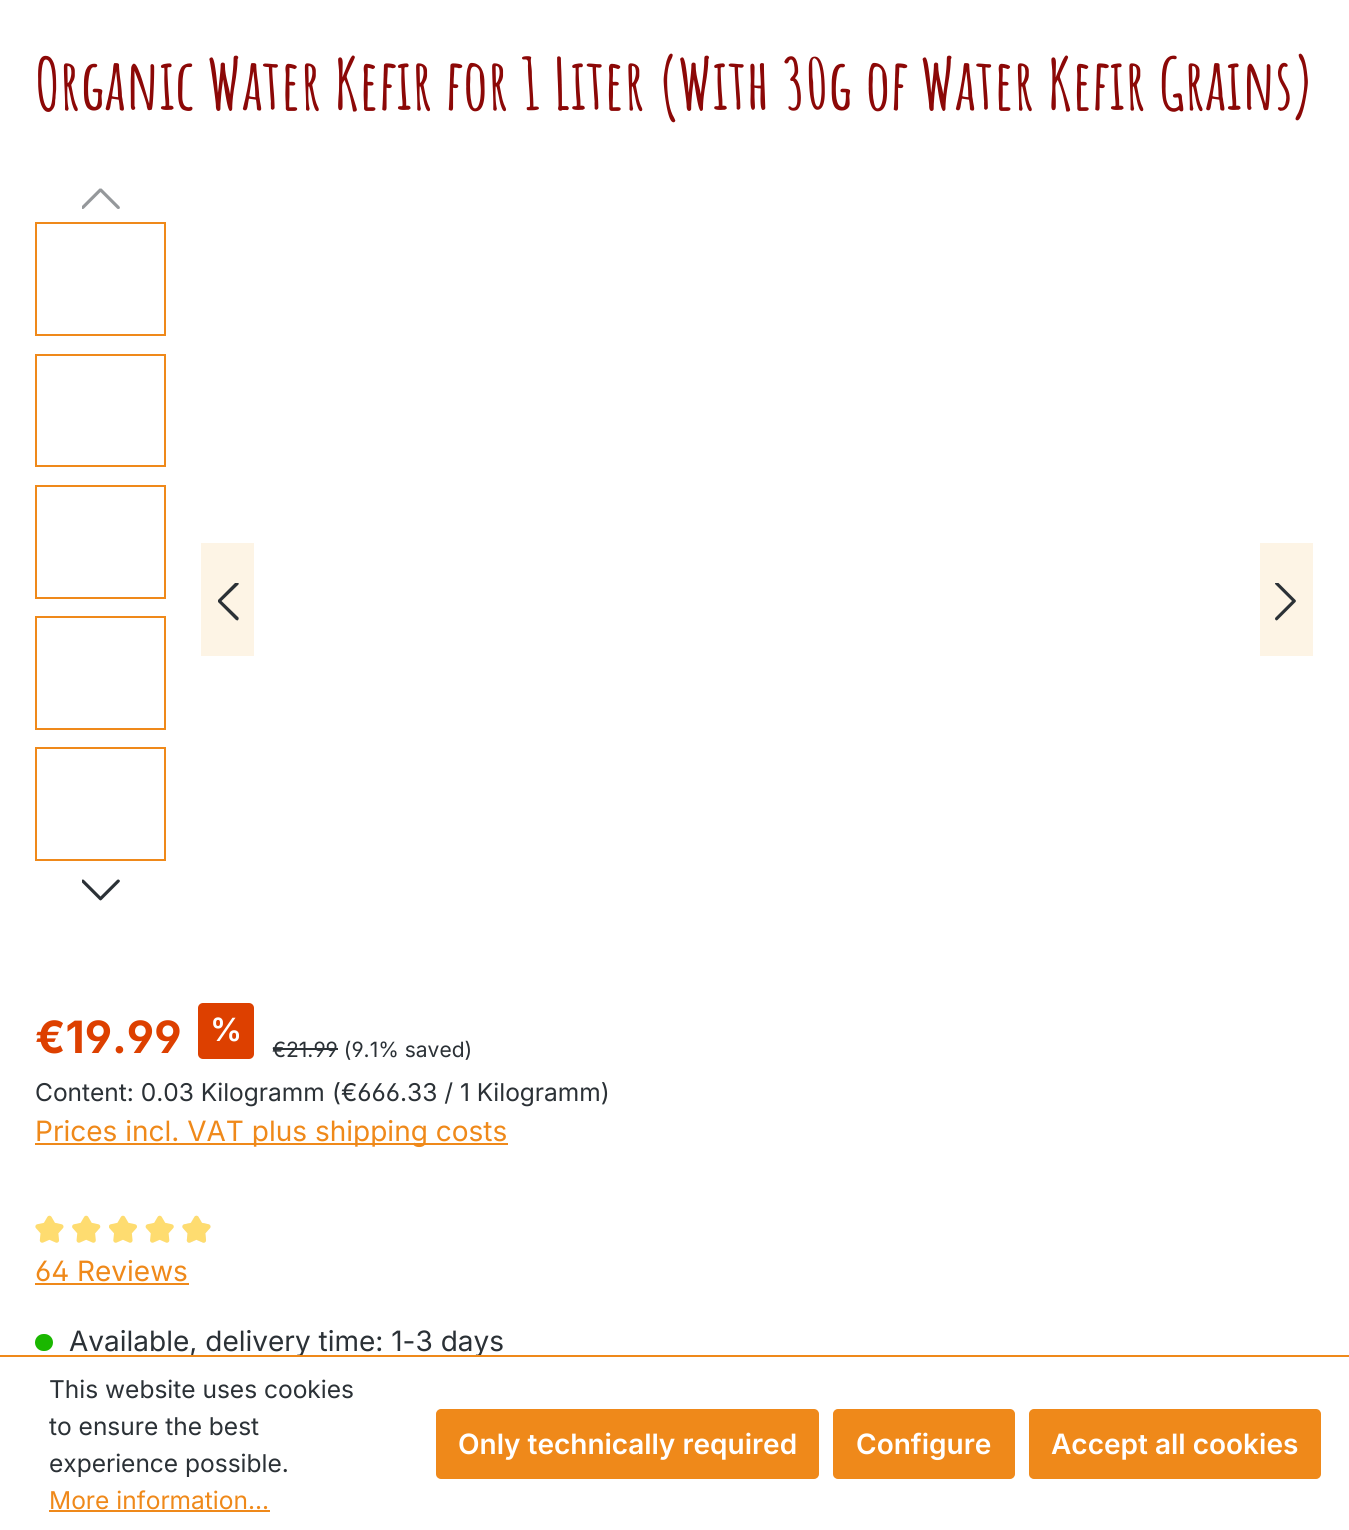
import math
import cairocffi as cairo

surface = cairo.ImageSurface(cairo.FORMAT_RGB24, 1349, 1530)
cr = cairo.Context(surface)
options = cairo.FontOptions()
options.set_hint_metrics(cairo.HINT_METRICS_OFF)
options.set_hint_style(cairo.HINT_STYLE_NONE)
cr.set_font_options(options)
cr.set_miter_limit(4)


def use_color(code):
    cr.set_source_rgb(*(v / 255 for v in bytes.fromhex(code[-6:])))


def round_rect(x, y, w, h, r):
    cr.new_sub_path()
    for i, (u, v) in enumerate([(x + w - r, y + h - r), (x + r, y + h - r), (x + r, y + r), (x + w - r, y + r)]):
        cr.arc(u, v, r, i * math.pi / 2, (i + 1) * math.pi / 2)
    cr.close_path()


def picture(path, x, y, w, h):
    cr.save()
    cr.set_source_surface(cairo.ImageSurface.create_from_png(path), x, y)
    cr.rectangle(x, y, w, h)
    cr.fill()
    cr.restore()


use_color("#ffffff")
cr.paint()
cr.select_font_face("Amatic SC", cairo.FONT_SLANT_NORMAL, cairo.FONT_WEIGHT_BOLD)
cr.set_font_size(70)
use_color("#8c0807")
cr.move_to(35, 110)
cr.show_text("Organic Water Kefir for 1 Liter (With 30g of Water Kefir Grains)")
cr.save()
cr.rectangle(82, 180, 39, 39)
cr.clip()
use_color("#95989b")
cr.set_fill_rule(cairo.FILL_RULE_EVEN_ODD)
cr.new_path()
cr.move_to(100.5, 192)
cr.line_to(117, 208.5)
cr.curve_to(118, 209.5, 119.5, 209, 120, 208)
cr.line_to(119.5, 206.5)
cr.line_to(101.5, 188.5)
cr.line_to(100.5, 188.5)
cr.line_to(99.5, 188.5)
cr.line_to(81.5, 206.5)
cr.line_to(81.5, 208)
cr.curve_to(81.5, 209, 83, 209.5, 84, 208.5)
cr.close_path()
cr.fill()
cr.restore()
cr.save()
cr.rectangle(82, 872, 39, 38)
cr.clip()
use_color("#2b3136")
cr.set_fill_rule(cairo.FILL_RULE_EVEN_ODD)
cr.new_path()
cr.move_to(100.5, 896.5)
cr.line_to(117, 880)
cr.curve_to(118, 879, 119.5, 879.5, 120, 881)
cr.line_to(119.5, 882)
cr.line_to(101.5, 900)
cr.line_to(100.5, 900.5)
cr.line_to(99.5, 900)
cr.line_to(81.5, 882)
cr.line_to(81.5, 881)
cr.curve_to(81.5, 879.5, 83, 879, 84, 880)
cr.close_path()
cr.fill()
cr.restore()
cr.rectangle(36, 223, 129, 112)
use_color("#ef891a")
cr.stroke()
cr.rectangle(36, 355, 129, 111)
cr.stroke()
cr.rectangle(36, 486, 129, 112)
cr.stroke()
cr.rectangle(36, 617, 129, 112)
cr.stroke()
cr.rectangle(36, 748, 129, 112)
cr.stroke()
use_color("#fdf4e5")
cr.rectangle(201, 543, 53, 113)
cr.fill()
cr.save()
cr.rectangle(208, 583, 39, 38)
cr.clip()
use_color("#2b3136")
cr.set_fill_rule(cairo.FILL_RULE_EVEN_ODD)
cr.new_path()
cr.move_to(221.5, 601)
cr.line_to(238.5, 617.5)
cr.curve_to(239, 618.5, 238.5, 620, 237.5, 620.5)
cr.line_to(236, 620)
cr.line_to(218, 602)
cr.line_to(218, 601)
cr.line_to(218, 600)
cr.line_to(236, 582)
cr.line_to(237.5, 582)
cr.curve_to(238.5, 582, 239, 583.5, 238.5, 584.5)
cr.close_path()
cr.fill()
cr.restore()
cr.rectangle(1260, 543, 53, 113)
cr.fill()
cr.save()
cr.rectangle(1267, 583, 39, 38)
cr.clip()
use_color("#2b3136")
cr.set_fill_rule(cairo.FILL_RULE_EVEN_ODD)
cr.new_path()
cr.move_to(1292, 601)
cr.line_to(1275.5, 617.5)
cr.curve_to(1274.5, 618.5, 1275, 620, 1276.5, 620.5)
cr.line_to(1277.5, 620)
cr.line_to(1295.5, 602)
cr.line_to(1296, 601)
cr.line_to(1295.5, 600)
cr.line_to(1277.5, 582)
cr.line_to(1276.5, 582)
cr.curve_to(1275, 582, 1274.5, 583.5, 1275.5, 584.5)
cr.close_path()
cr.fill()
cr.restore()
cr.select_font_face("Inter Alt", cairo.FONT_SLANT_NORMAL, cairo.FONT_WEIGHT_BOLD)
cr.set_font_size(44.5)
use_color("#dd4000")
cr.move_to(35, 1053)
cr.show_text("€19.99")
round_rect(198, 1003, 56, 56, 5)
cr.fill()
cr.select_font_face("Inter SemiBold")
cr.set_font_size(32)
use_color("#ffffff")
cr.move_to(210, 1041)
cr.show_text("%")
cr.select_font_face("Inter Alt")
cr.set_font_size(21)
use_color("#2b3136")
cr.move_to(272, 1057)
cr.show_text("€21.99 (9.1% saved)")
cr.rectangle(273, 1048, 65, 2)
cr.fill()
cr.select_font_face("Inter")
cr.set_font_size(24.5)
cr.move_to(35, 1101)
cr.show_text("Content: 0.03 Kilogramm")
cr.select_font_face("Inter Alt")
cr.move_to(332, 1101)
cr.show_text("(€666.33 / 1 Kilogramm)")
use_color("#ef891a")
cr.rectangle(35, 1143, 473, 2)
cr.fill()
cr.select_font_face("Inter")
cr.set_font_size(28)
cr.move_to(35, 1141)
cr.show_text("Prices incl. VAT plus shipping costs")
picture("img1.png", 35, 1215, 29, 28)
picture("img2.png", 72, 1215, 29, 28)
picture("img3.png", 109, 1215, 28, 28)
picture("img4.png", 145, 1215, 29, 28)
picture("img5.png", 182, 1215, 29, 28)
picture("img6.png", 182, 1215, 29, 28)
cr.select_font_face("Inter Alt")
cr.move_to(35, 1281)
cr.show_text("64")
cr.rectangle(35, 1283, 154, 2)
cr.fill()
cr.select_font_face("Inter")
cr.move_to(77, 1281)
cr.show_text("Reviews")
use_color("#1ab700")
round_rect(35, 1334, 18, 17, 8.5)
cr.fill()
use_color("#2b3136")
cr.move_to(69, 1351)
cr.show_text("Available, delivery time: 1-3 days")
use_color("#ef891a")
cr.rectangle(0, 1355, 1349, 2)
cr.fill()
cr.set_font_size(24.5)
use_color("#2b3136")
cr.move_to(49, 1398)
cr.show_text("This website uses cookies")
cr.move_to(49, 1435)
cr.show_text("to ensure the best")
cr.move_to(49, 1472)
cr.show_text("experience possible.")
use_color("#ef891a")
cr.move_to(49, 1509)
cr.show_text("More information...")
cr.rectangle(49, 1510, 221, 2)
cr.fill()
round_rect(437, 1410, 381, 68, 4)
cr.fill_preserve()
cr.stroke()
cr.select_font_face("Inter SemiBold")
cr.set_font_size(28)
use_color("#ffffff")
cr.move_to(458, 1454)
cr.show_text("Only technically required")
use_color("#ef891a")
round_rect(834, 1410, 180, 68, 4)
cr.fill_preserve()
cr.stroke()
use_color("#ffffff")
cr.move_to(856, 1454)
cr.show_text("Configure")
use_color("#ef891a")
round_rect(1030, 1410, 290, 68, 4)
cr.fill_preserve()
cr.stroke()
use_color("#ffffff")
cr.move_to(1051, 1454)
cr.show_text("Accept all cookies")
surface.write_to_png("result.png")
